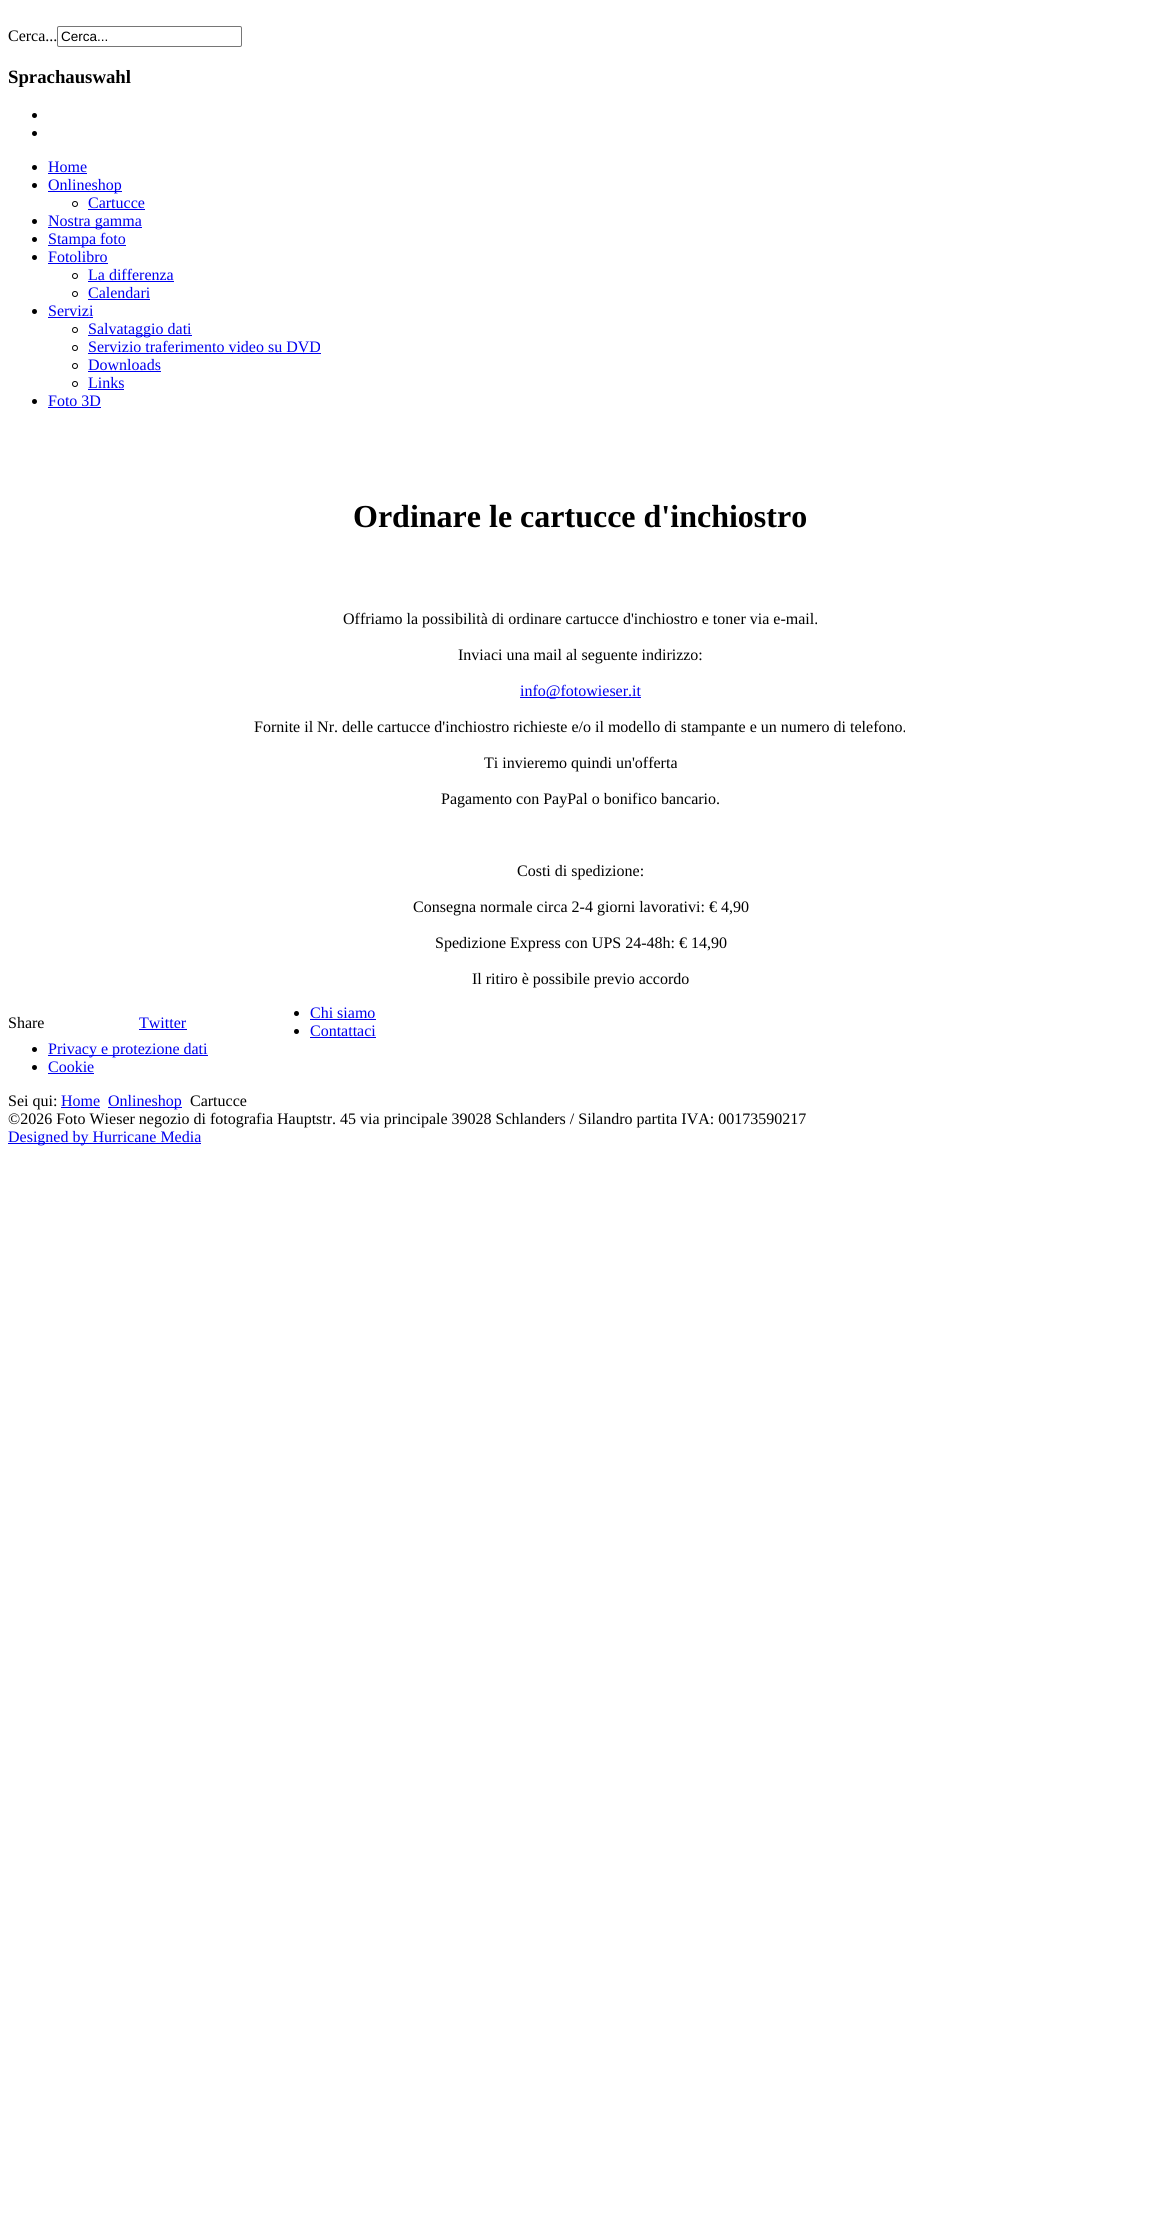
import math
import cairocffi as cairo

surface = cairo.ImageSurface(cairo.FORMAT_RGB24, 1161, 2234)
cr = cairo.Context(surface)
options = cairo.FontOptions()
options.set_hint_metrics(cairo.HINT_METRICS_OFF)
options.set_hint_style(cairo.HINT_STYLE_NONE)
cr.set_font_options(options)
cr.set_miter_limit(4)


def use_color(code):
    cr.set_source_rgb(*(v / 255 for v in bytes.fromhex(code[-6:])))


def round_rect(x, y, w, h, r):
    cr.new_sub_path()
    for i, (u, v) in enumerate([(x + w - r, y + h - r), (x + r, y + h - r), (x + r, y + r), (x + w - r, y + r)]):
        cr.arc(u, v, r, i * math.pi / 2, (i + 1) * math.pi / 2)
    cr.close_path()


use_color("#ffffff")
cr.paint()
cr.select_font_face("Liberation Serif")
cr.set_font_size(16)
use_color("#000000")
cr.move_to(8, 41)
cr.show_text("Cerca...")
round_rect(57.5, 26.5, 184, 20, 1.5)
use_color("#767676")
cr.set_line_width(1)
cr.stroke()
cr.select_font_face("Liberation Sans")
cr.set_font_size(13.5)
use_color("#000000")
cr.move_to(61, 41)
cr.show_text("Cerca...")
cr.select_font_face("Liberation Serif", cairo.FONT_SLANT_NORMAL, cairo.FONT_WEIGHT_BOLD)
cr.set_font_size(18.75)
cr.move_to(8, 83)
cr.show_text("Sprachauswahl")
cr.new_path()
cr.arc(34.5, 115.5, 2.5, 0, 2 * math.pi)
cr.fill()
cr.arc(34.5, 133.5, 2.5, 0, 2 * math.pi)
cr.fill()
cr.arc(34.5, 167.5, 2.5, 0, 2 * math.pi)
cr.fill()
cr.select_font_face("Liberation Serif")
cr.set_font_size(16)
use_color("#0000ee")
cr.move_to(48, 172)
cr.show_text("Home")
cr.rectangle(48, 173, 39, 1)
cr.fill()
use_color("#000000")
cr.arc(34.5, 185.5, 2.5, 0, 2 * math.pi)
cr.fill()
use_color("#0000ee")
cr.rectangle(48, 191, 74, 1)
cr.fill()
cr.move_to(48, 190)
cr.show_text("Onlineshop")
cr.new_path()
cr.arc(75, 204, 2.5, 0, 2 * math.pi)
use_color("#000000")
cr.stroke()
use_color("#0000ee")
cr.move_to(88, 208)
cr.show_text("Cartucce")
cr.rectangle(88, 209, 57, 1)
cr.fill()
use_color("#000000")
cr.arc(34.5, 221.5, 2.5, 0, 2 * math.pi)
cr.fill()
use_color("#0000ee")
cr.rectangle(48, 227, 94, 1)
cr.fill()
cr.move_to(48, 226)
cr.show_text("Nostra gamma")
use_color("#000000")
cr.new_path()
cr.arc(34.5, 239.5, 2.5, 0, 2 * math.pi)
cr.fill()
use_color("#0000ee")
cr.rectangle(48, 245, 78, 1)
cr.fill()
cr.move_to(48, 244)
cr.show_text("Stampa foto")
use_color("#000000")
cr.new_path()
cr.arc(34.5, 257.5, 2.5, 0, 2 * math.pi)
cr.fill()
use_color("#0000ee")
cr.move_to(48, 262)
cr.show_text("Fotolibro")
cr.rectangle(48, 263, 60, 1)
cr.fill()
cr.arc(75, 276, 2.5, 0, 2 * math.pi)
use_color("#000000")
cr.stroke()
use_color("#0000ee")
cr.move_to(88, 280)
cr.show_text("La differenza")
cr.rectangle(88, 281, 86, 1)
cr.fill()
cr.arc(75, 294, 2.5, 0, 2 * math.pi)
use_color("#000000")
cr.stroke()
use_color("#0000ee")
cr.move_to(88, 298)
cr.show_text("Calendari")
cr.rectangle(88, 299, 62, 1)
cr.fill()
use_color("#000000")
cr.arc(34.5, 311.5, 2.5, 0, 2 * math.pi)
cr.fill()
use_color("#0000ee")
cr.move_to(48, 316)
cr.show_text("Servizi")
cr.rectangle(48, 317, 45, 1)
cr.fill()
cr.arc(75, 330, 2.5, 0, 2 * math.pi)
use_color("#000000")
cr.stroke()
use_color("#0000ee")
cr.rectangle(88, 335, 104, 1)
cr.fill()
cr.move_to(88, 334)
cr.show_text("Salvataggio dati")
cr.new_path()
cr.arc(75, 348, 2.5, 0, 2 * math.pi)
use_color("#000000")
cr.stroke()
use_color("#0000ee")
cr.move_to(88, 352)
cr.show_text("Servizio traferimento video su DVD")
cr.rectangle(88, 353, 233, 1)
cr.fill()
cr.arc(75, 366, 2.5, 0, 2 * math.pi)
use_color("#000000")
cr.stroke()
use_color("#0000ee")
cr.move_to(88, 370)
cr.show_text("Downloads")
cr.rectangle(88, 371, 73, 1)
cr.fill()
cr.arc(75, 384, 2.5, 0, 2 * math.pi)
use_color("#000000")
cr.stroke()
use_color("#0000ee")
cr.move_to(88, 388)
cr.show_text("Links")
cr.rectangle(88, 389, 36, 1)
cr.fill()
use_color("#000000")
cr.arc(34.5, 401.5, 2.5, 0, 2 * math.pi)
cr.fill()
use_color("#0000ee")
cr.move_to(48, 406)
cr.show_text("Foto 3D")
cr.rectangle(48, 407, 53, 1)
cr.fill()
cr.select_font_face("Liberation Serif", cairo.FONT_SLANT_NORMAL, cairo.FONT_WEIGHT_BOLD)
cr.set_font_size(32)
use_color("#000000")
cr.move_to(353, 527)
cr.show_text("Ordinare le cartucce d'inchiostro")
cr.select_font_face("Liberation Serif")
cr.set_font_size(16)
cr.move_to(343, 624)
cr.show_text("Offriamo la possibilità di ordinare cartucce d'inchiostro e toner via e-mail.")
cr.move_to(458, 660)
cr.show_text("Inviaci una mail al seguente indirizzo:")
use_color("#0000ee")
cr.rectangle(520, 697, 121, 1)
cr.fill()
cr.move_to(520, 696)
cr.show_text("info@fotowieser.it")
use_color("#000000")
cr.move_to(254, 732)
cr.show_text("Fornite il Nr. delle cartucce d'inchiostro richieste e/o il modello di stampante e un numero di telefono.")
cr.move_to(484, 768)
cr.show_text("Ti invieremo quindi un'offerta")
cr.move_to(441, 804)
cr.show_text("Pagamento con PayPal o bonifico bancario.")
cr.move_to(517, 876)
cr.show_text("Costi di spedizione:")
cr.move_to(413, 912)
cr.show_text("Consegna normale circa 2-4 giorni lavorativi: € 4,90")
cr.move_to(435, 948)
cr.show_text("Spedizione Express con UPS 24-48h: € 14,90")
cr.move_to(472, 984)
cr.show_text("Il ritiro è possibile previo accordo")
cr.move_to(8, 1028)
cr.show_text("Share")
use_color("#0000ee")
cr.move_to(139, 1028)
cr.show_text("Twitter")
cr.rectangle(139, 1029, 48, 1)
cr.fill()
use_color("#000000")
cr.arc(296.5, 1013.5, 2.5, 0, 2 * math.pi)
cr.fill()
use_color("#0000ee")
cr.move_to(310, 1018)
cr.show_text("Chi siamo")
cr.rectangle(310, 1019, 66, 1)
cr.fill()
use_color("#000000")
cr.arc(296.5, 1031.5, 2.5, 0, 2 * math.pi)
cr.fill()
use_color("#0000ee")
cr.move_to(310, 1036)
cr.show_text("Contattaci")
cr.rectangle(310, 1037, 66, 1)
cr.fill()
use_color("#000000")
cr.arc(34.5, 1049.5, 2.5, 0, 2 * math.pi)
cr.fill()
use_color("#0000ee")
cr.rectangle(48, 1055, 160, 1)
cr.fill()
cr.move_to(48, 1054)
cr.show_text("Privacy e protezione dati")
use_color("#000000")
cr.new_path()
cr.arc(34.5, 1067.5, 2.5, 0, 2 * math.pi)
cr.fill()
use_color("#0000ee")
cr.move_to(48, 1072)
cr.show_text("Cookie")
cr.rectangle(48, 1073, 46, 1)
cr.fill()
use_color("#000000")
cr.move_to(8, 1106)
cr.show_text("Sei qui:")
use_color("#0000ee")
cr.move_to(61, 1106)
cr.show_text("Home")
cr.rectangle(61, 1107, 39, 1)
cr.fill()
cr.rectangle(108, 1107, 74, 1)
cr.fill()
cr.move_to(108, 1106)
cr.show_text("Onlineshop")
use_color("#000000")
cr.move_to(190, 1106)
cr.show_text("Cartucce")
cr.move_to(8, 1124)
cr.show_text("©2026 Foto Wieser negozio di fotografia Hauptstr. 45 via principale 39028 Schlanders / Silandro partita IVA: 00173590217")
use_color("#0000ee")
cr.rectangle(8, 1143, 193, 1)
cr.fill()
cr.move_to(8, 1142)
cr.show_text("Designed by Hurricane Media")
surface.write_to_png("result.png")
